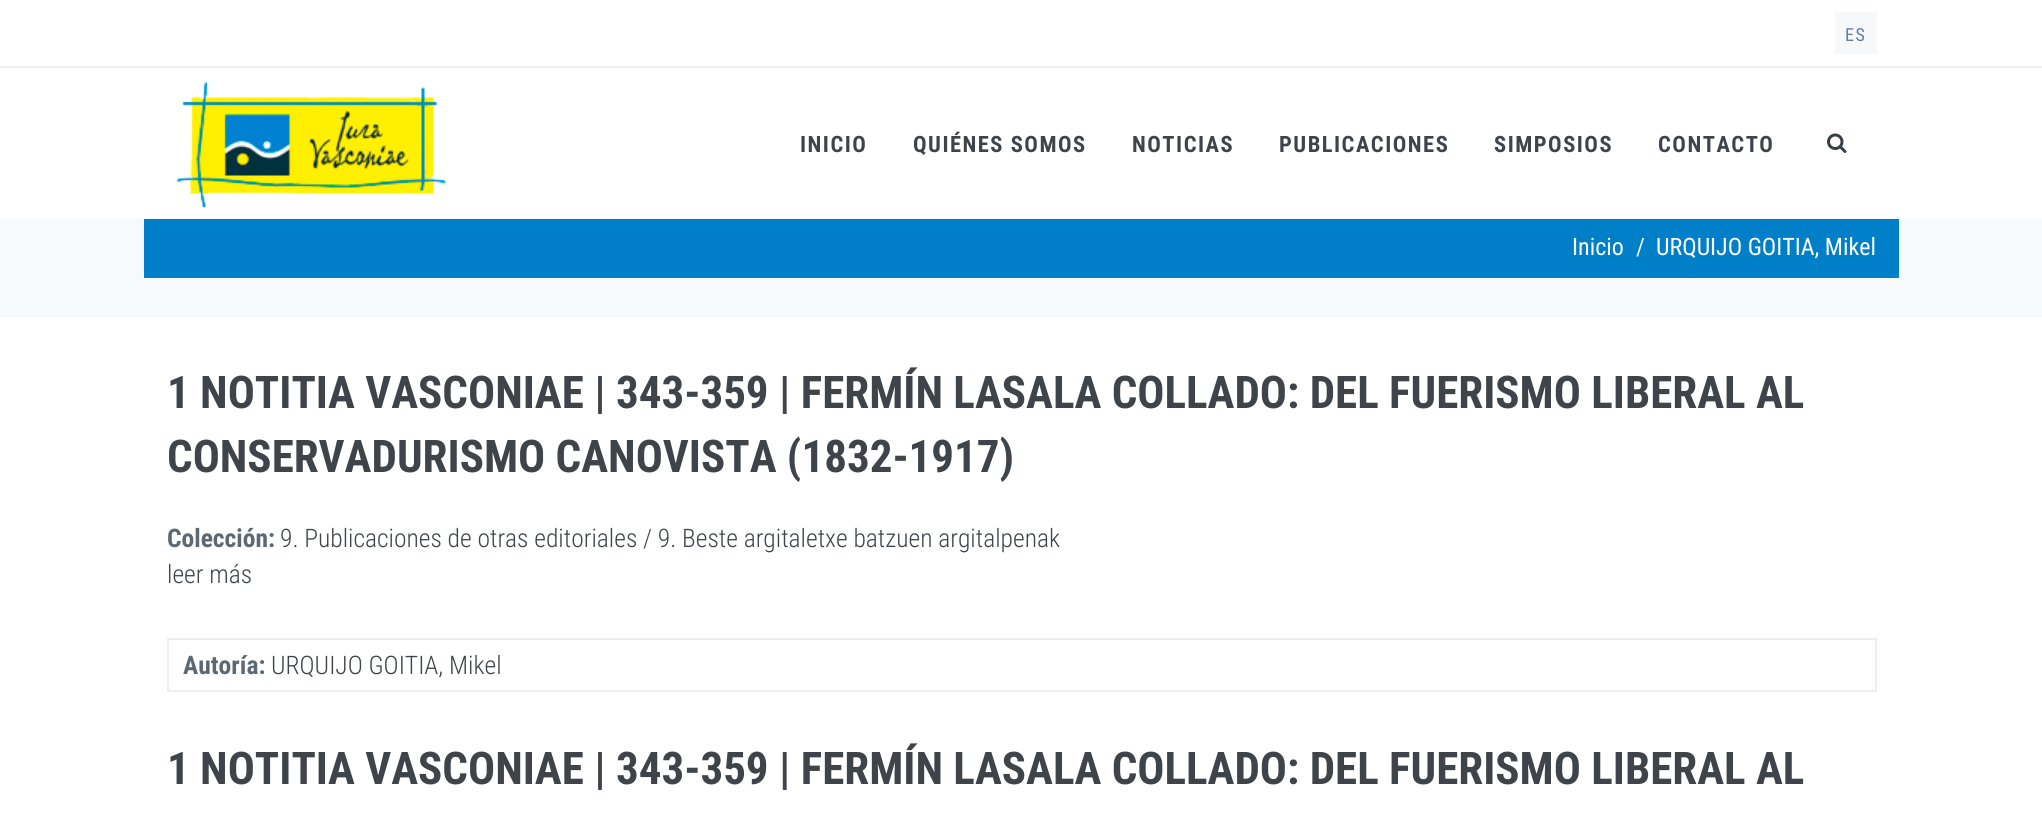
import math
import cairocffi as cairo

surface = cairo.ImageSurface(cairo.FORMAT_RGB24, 2042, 824)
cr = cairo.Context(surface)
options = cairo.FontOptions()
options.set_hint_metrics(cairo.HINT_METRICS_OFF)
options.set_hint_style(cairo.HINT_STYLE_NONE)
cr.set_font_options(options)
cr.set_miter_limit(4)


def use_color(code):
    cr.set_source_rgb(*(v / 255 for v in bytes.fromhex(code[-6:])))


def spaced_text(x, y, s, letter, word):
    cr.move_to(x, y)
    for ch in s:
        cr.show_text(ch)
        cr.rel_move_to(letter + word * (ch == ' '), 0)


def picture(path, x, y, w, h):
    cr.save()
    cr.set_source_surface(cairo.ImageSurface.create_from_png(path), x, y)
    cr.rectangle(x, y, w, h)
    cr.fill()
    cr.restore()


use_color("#ffffff")
cr.paint()
use_color("#edeff3")
cr.rectangle(0, 66, 2042, 2)
cr.fill()
use_color("#f6f8fa")
cr.rectangle(1835, 12, 42, 42)
cr.fill()
cr.select_font_face("Roboto Condensed")
cr.set_font_size(18)
use_color("#697d99")
spaced_text(1845, 41, "ES", 1.5, 0)
picture("img1.png", 176, 82, 270, 126)
cr.select_font_face("Roboto Condensed", cairo.FONT_SLANT_NORMAL, cairo.FONT_WEIGHT_BOLD)
cr.set_font_size(22.5)
use_color("#3f444a")
spaced_text(800, 152, "INICIO", 1.5, 0)
spaced_text(913, 152, "QUIÉNES SOMOS", 1.5, 0)
spaced_text(1132, 152, "NOTICIAS", 1.5, 0)
spaced_text(1279, 152, "PUBLICACIONES", 1.5, 0)
spaced_text(1494, 152, "SIMPOSIOS", 1.5, 0)
spaced_text(1658, 152, "CONTACTO", 1.5, 0)
picture("img2.png", 1827, 133, 20, 20)
use_color("#f7fafb")
cr.rectangle(0, 218, 2042, 97)
cr.fill()
use_color("#f4f8f9")
cr.rectangle(0, 315, 2042, 2)
cr.fill()
use_color("#007fc9")
cr.rectangle(144, 219, 1755, 59)
cr.fill()
cr.select_font_face("Roboto Condensed")
cr.set_font_size(24)
use_color("#ffffff")
cr.move_to(1572, 255)
cr.show_text("Inicio")
cr.move_to(1636, 255)
cr.show_text("/")
cr.move_to(1656, 255)
cr.show_text("URQUIJO GOITIA, Mikel")
cr.select_font_face("Roboto Condensed", cairo.FONT_SLANT_NORMAL, cairo.FONT_WEIGHT_BOLD)
cr.set_font_size(45)
use_color("#3f444a")
cr.move_to(167, 408)
cr.show_text("1 NOTITIA VASCONIAE | 343-359 | FERMÍN LASALA COLLADO: DEL FUERISMO LIBERAL AL")
cr.move_to(167, 472)
cr.show_text("CONSERVADURISMO CANOVISTA (1832-1917)")
cr.set_font_size(25.5)
use_color("#5c6873")
cr.move_to(167, 547)
cr.show_text("Colección:")
cr.select_font_face("Roboto Condensed Light")
use_color("#3f444a")
cr.move_to(280, 547)
cr.show_text("9. Publicaciones de otras editoriales / 9. Beste argitaletxe batzuen argitalpenak")
cr.move_to(167, 583)
cr.show_text("leer más")
cr.rectangle(168, 639, 1708, 52)
use_color("#eeeeee")
cr.stroke()
cr.select_font_face("Roboto Condensed", cairo.FONT_SLANT_NORMAL, cairo.FONT_WEIGHT_BOLD)
use_color("#5c6873")
cr.move_to(183, 674)
cr.show_text("Autoría:")
cr.select_font_face("Roboto Condensed Light")
use_color("#3f444a")
cr.move_to(271, 674)
cr.show_text("URQUIJO GOITIA, Mikel")
cr.select_font_face("Roboto Condensed", cairo.FONT_SLANT_NORMAL, cairo.FONT_WEIGHT_BOLD)
cr.set_font_size(45)
cr.move_to(167, 784)
cr.show_text("1 NOTITIA VASCONIAE | 343-359 | FERMÍN LASALA COLLADO: DEL FUERISMO LIBERAL AL")
surface.write_to_png("result.png")
